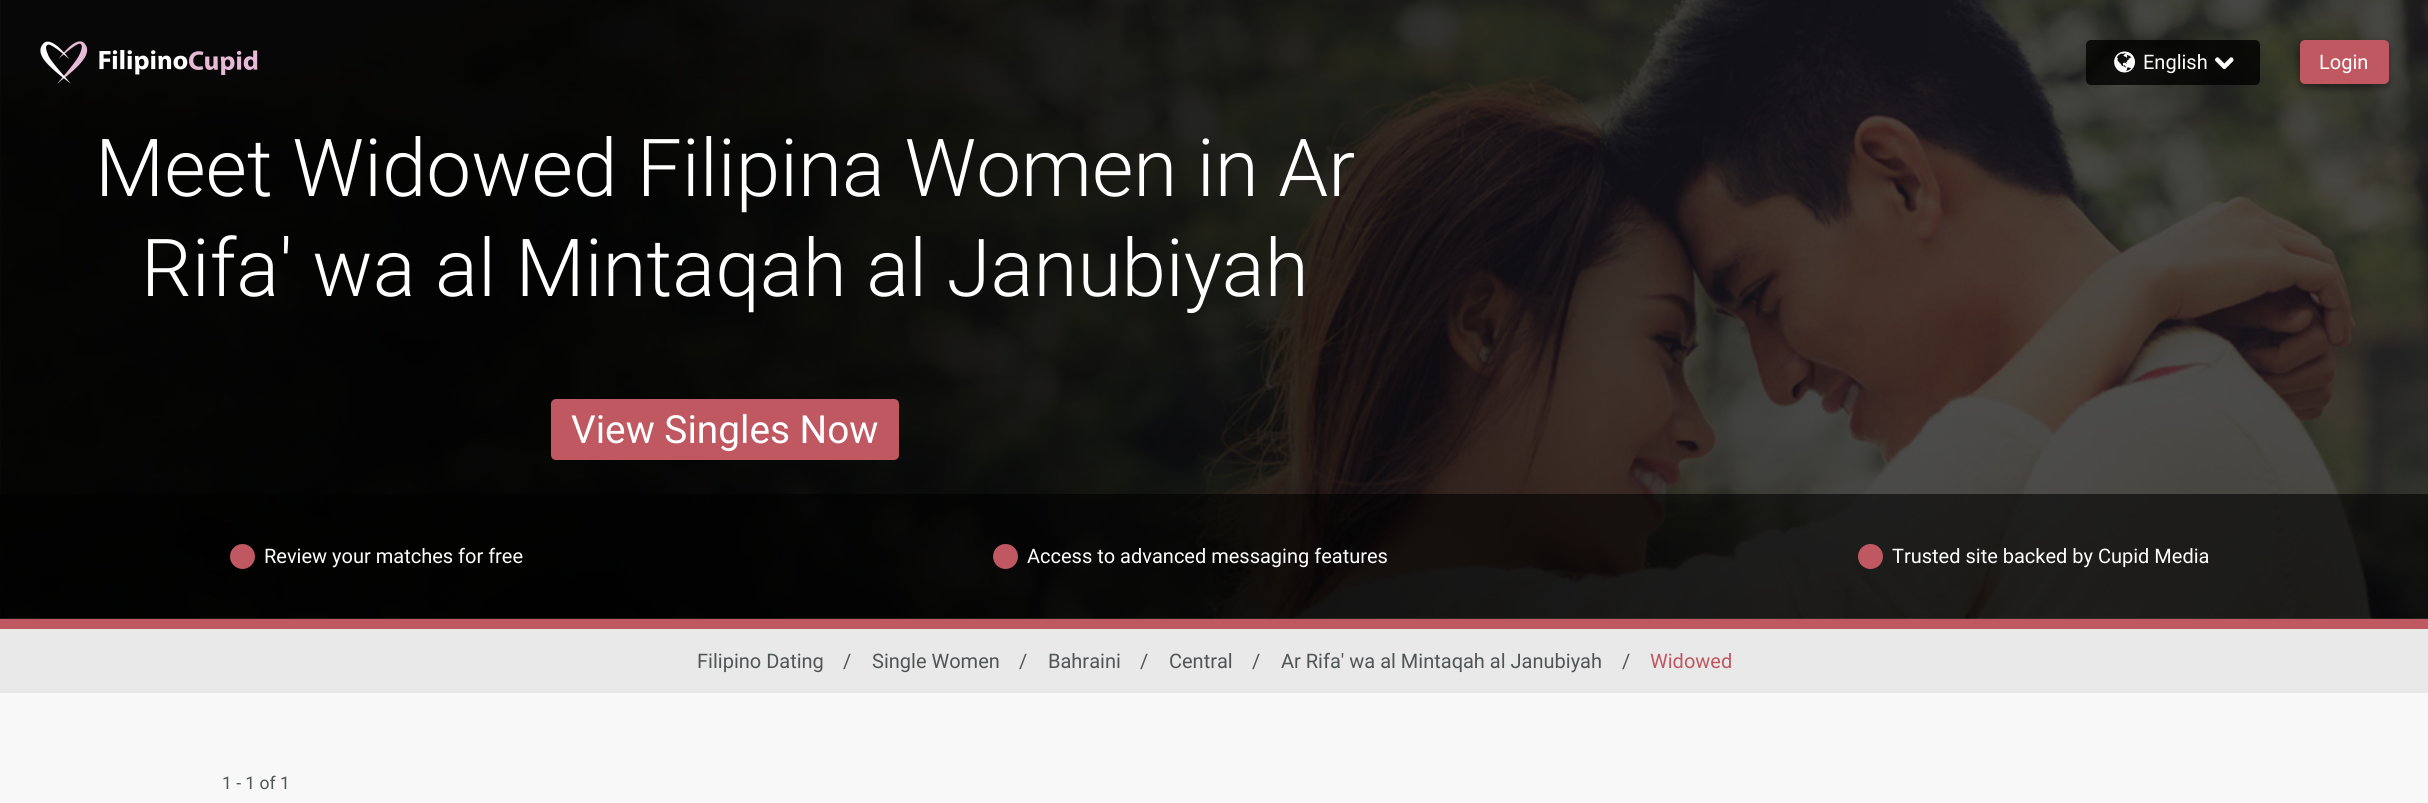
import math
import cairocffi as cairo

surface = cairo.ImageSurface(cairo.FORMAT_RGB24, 2428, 803)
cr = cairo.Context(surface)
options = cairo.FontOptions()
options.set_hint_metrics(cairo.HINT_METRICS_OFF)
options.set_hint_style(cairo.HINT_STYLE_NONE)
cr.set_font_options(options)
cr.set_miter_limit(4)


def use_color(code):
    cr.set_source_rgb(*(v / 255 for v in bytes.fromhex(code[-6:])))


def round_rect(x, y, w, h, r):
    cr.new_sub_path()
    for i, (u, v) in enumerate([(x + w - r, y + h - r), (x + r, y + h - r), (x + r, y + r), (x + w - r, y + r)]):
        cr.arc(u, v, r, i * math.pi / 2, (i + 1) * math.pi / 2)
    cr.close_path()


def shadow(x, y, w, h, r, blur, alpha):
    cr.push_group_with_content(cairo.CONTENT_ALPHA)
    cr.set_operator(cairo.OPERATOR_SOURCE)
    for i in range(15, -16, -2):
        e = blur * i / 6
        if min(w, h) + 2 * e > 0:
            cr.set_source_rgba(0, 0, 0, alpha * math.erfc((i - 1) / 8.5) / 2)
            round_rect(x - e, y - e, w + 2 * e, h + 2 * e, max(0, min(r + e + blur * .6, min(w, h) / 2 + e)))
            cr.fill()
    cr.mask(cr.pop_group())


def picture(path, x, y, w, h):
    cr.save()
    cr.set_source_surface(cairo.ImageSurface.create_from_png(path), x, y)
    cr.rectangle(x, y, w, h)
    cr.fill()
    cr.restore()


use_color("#f8f8f8")
cr.paint()
picture("img5.png", 0, 0, 2428, 619)
picture("img1.png", 40, 41, 48, 43)
picture("img2.png", 99, 50, 159, 25)
cr.set_source_rgba(0, 0, 0, 0.8)
round_rect(2086, 40, 174, 45, 5)
cr.fill()
picture("img3.png", 2114, 51, 21, 22)
cr.select_font_face("Roboto")
cr.set_font_size(20)
use_color("#ffffff")
cr.move_to(2143, 69)
cr.show_text("English")
picture("img4.png", 2215, 57, 19, 12)
use_color("#000000")
shadow(2300, 44, 89, 44, 5, 4, 0.4)
use_color("#bf5860")
round_rect(2300, 40, 89, 44, 5)
cr.fill()
use_color("#ffffff")
cr.move_to(2319, 69)
cr.show_text("Login")
cr.select_font_face("Roboto Light")
cr.set_font_size(80)
cr.move_to(95, 196)
cr.show_text("Meet Widowed Filipina Women in Ar")
cr.move_to(141, 296)
cr.show_text("Rifa' wa al Mintaqah al Janubiyah")
use_color("#bf5860")
round_rect(551, 399, 348, 61, 5)
cr.fill()
cr.select_font_face("Roboto")
cr.set_font_size(38.75)
use_color("#ffffff")
cr.move_to(571, 443)
cr.show_text("View Singles Now")
cr.set_source_rgba(0, 0, 0, 0.6)
cr.rectangle(0, 494, 2428, 125)
cr.fill()
use_color("#bf5860")
cr.arc(242.5, 556.5, 12.5, 0, 2 * math.pi)
cr.fill()
cr.set_font_size(20)
use_color("#ffffff")
cr.move_to(264, 563)
cr.show_text("Review your matches for free")
use_color("#bf5860")
cr.new_path()
cr.arc(1005.5, 556.5, 12.5, 0, 2 * math.pi)
cr.fill()
use_color("#ffffff")
cr.move_to(1027, 563)
cr.show_text("Access to advanced messaging features")
use_color("#bf5860")
cr.new_path()
cr.arc(1870.5, 556.5, 12.5, 0, 2 * math.pi)
cr.fill()
use_color("#ffffff")
cr.move_to(1892, 563)
cr.show_text("Trusted site backed by Cupid Media")
use_color("#bf5860")
cr.rectangle(0, 619, 2428, 10)
cr.fill()
use_color("#e9e9e9")
cr.rectangle(0, 629, 2428, 64)
cr.fill()
use_color("#505656")
cr.move_to(697, 668)
cr.show_text("Filipino Dating")
cr.move_to(843, 668)
cr.show_text("/")
cr.move_to(872, 668)
cr.show_text("Single Women")
cr.move_to(1019, 668)
cr.show_text("/")
cr.move_to(1048, 668)
cr.show_text("Bahraini")
cr.move_to(1140, 668)
cr.show_text("/")
cr.move_to(1169, 668)
cr.show_text("Central")
cr.move_to(1252, 668)
cr.show_text("/")
cr.move_to(1281, 668)
cr.show_text("Ar Rifa' wa al Mintaqah al Janubiyah")
cr.move_to(1622, 668)
cr.show_text("/")
use_color("#bf5860")
cr.move_to(1650, 668)
cr.show_text("Widowed")
cr.set_font_size(17.5)
use_color("#505656")
cr.move_to(222, 789)
cr.show_text("1 - 1 of 1")
surface.write_to_png("result.png")
